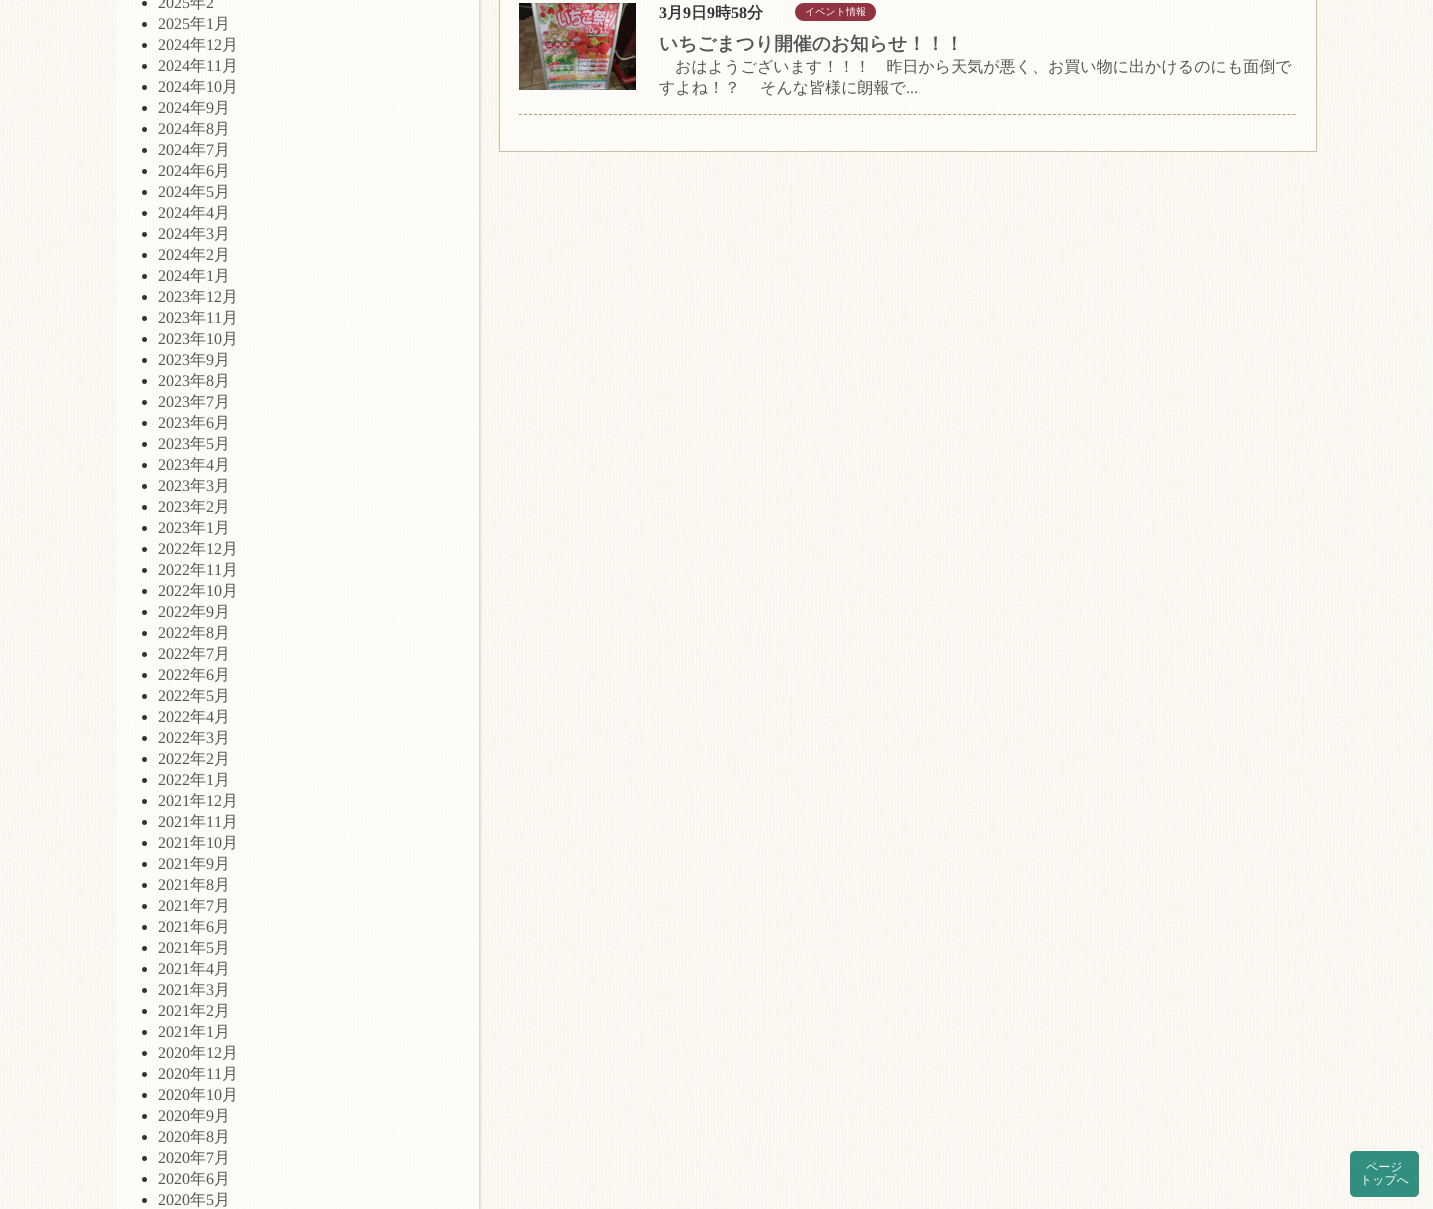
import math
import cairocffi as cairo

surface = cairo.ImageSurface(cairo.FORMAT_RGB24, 1433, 1209)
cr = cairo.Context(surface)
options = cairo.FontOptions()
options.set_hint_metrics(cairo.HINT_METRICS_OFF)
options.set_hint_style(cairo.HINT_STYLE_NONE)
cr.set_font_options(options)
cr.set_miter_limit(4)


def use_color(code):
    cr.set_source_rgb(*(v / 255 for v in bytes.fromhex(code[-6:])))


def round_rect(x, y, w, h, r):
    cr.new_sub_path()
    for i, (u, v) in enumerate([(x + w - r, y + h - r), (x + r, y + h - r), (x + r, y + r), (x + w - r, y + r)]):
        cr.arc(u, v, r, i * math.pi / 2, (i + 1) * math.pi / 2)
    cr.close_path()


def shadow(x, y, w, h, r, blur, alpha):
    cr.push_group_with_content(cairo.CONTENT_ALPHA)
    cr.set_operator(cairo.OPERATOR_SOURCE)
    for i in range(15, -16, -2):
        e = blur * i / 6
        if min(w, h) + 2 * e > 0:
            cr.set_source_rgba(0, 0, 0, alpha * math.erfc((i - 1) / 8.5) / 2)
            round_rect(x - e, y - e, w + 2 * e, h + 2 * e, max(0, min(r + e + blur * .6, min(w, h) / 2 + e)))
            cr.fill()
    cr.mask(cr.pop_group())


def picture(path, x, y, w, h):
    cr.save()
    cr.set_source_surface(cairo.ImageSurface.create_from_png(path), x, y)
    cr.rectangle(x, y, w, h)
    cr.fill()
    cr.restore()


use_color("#ffffff")
cr.paint()
picture("img1.png", 0, 0, 1433, 1209)
cr.save()
cr.rectangle(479, 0, 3, 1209)
cr.clip()
use_color("#000000")
shadow(118, -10, 362, 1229, 5, 1.5, 0.2)
cr.restore()
cr.set_source_rgba(1, 1, 1, 0.5)
cr.rectangle(117.5, -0.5, 361, 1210)
cr.fill_preserve()
use_color("#ffffff")
cr.set_line_width(1)
cr.stroke()
use_color("#333333")
cr.arc(144.5, 3.5, 2.5, 0, 2 * math.pi)
cr.fill()
cr.select_font_face("Liberation Serif")
cr.set_font_size(16)
use_color("#555555")
cr.move_to(158, 8)
cr.show_text("2025")
cr.select_font_face("WenQuanYi Zen Hei Medium")
cr.move_to(190, 8)
cr.show_text("年")
cr.select_font_face("Liberation Serif")
cr.move_to(206, 8)
cr.show_text("2")
use_color("#333333")
cr.new_path()
cr.arc(144.5, 24.5, 2.5, 0, 2 * math.pi)
cr.fill()
use_color("#555555")
cr.move_to(158, 29)
cr.show_text("2025")
cr.select_font_face("WenQuanYi Zen Hei Medium")
cr.move_to(190, 29)
cr.show_text("年")
cr.select_font_face("Liberation Serif")
cr.move_to(206, 29)
cr.show_text("1")
cr.select_font_face("WenQuanYi Zen Hei Medium")
cr.move_to(214, 29)
cr.show_text("月")
use_color("#333333")
cr.new_path()
cr.arc(144.5, 45.5, 2.5, 0, 2 * math.pi)
cr.fill()
cr.select_font_face("Liberation Serif")
use_color("#555555")
cr.move_to(158, 50)
cr.show_text("2024")
cr.select_font_face("WenQuanYi Zen Hei Medium")
cr.move_to(190, 50)
cr.show_text("年")
cr.select_font_face("Liberation Serif")
cr.move_to(206, 50)
cr.show_text("12")
cr.select_font_face("WenQuanYi Zen Hei Medium")
cr.move_to(222, 50)
cr.show_text("月")
use_color("#333333")
cr.new_path()
cr.arc(144.5, 66.5, 2.5, 0, 2 * math.pi)
cr.fill()
cr.select_font_face("Liberation Serif")
use_color("#555555")
cr.move_to(158, 71)
cr.show_text("2024")
cr.select_font_face("WenQuanYi Zen Hei Medium")
cr.move_to(190, 71)
cr.show_text("年")
cr.select_font_face("Liberation Serif")
cr.move_to(206, 71)
cr.show_text("11")
cr.select_font_face("WenQuanYi Zen Hei Medium")
cr.move_to(222, 71)
cr.show_text("月")
use_color("#333333")
cr.new_path()
cr.arc(144.5, 87.5, 2.5, 0, 2 * math.pi)
cr.fill()
cr.select_font_face("Liberation Serif")
use_color("#555555")
cr.move_to(158, 92)
cr.show_text("2024")
cr.select_font_face("WenQuanYi Zen Hei Medium")
cr.move_to(190, 92)
cr.show_text("年")
cr.select_font_face("Liberation Serif")
cr.move_to(206, 92)
cr.show_text("10")
cr.select_font_face("WenQuanYi Zen Hei Medium")
cr.move_to(222, 92)
cr.show_text("月")
use_color("#333333")
cr.new_path()
cr.arc(144.5, 108.5, 2.5, 0, 2 * math.pi)
cr.fill()
cr.select_font_face("Liberation Serif")
use_color("#555555")
cr.move_to(158, 113)
cr.show_text("2024")
cr.select_font_face("WenQuanYi Zen Hei Medium")
cr.move_to(190, 113)
cr.show_text("年")
cr.select_font_face("Liberation Serif")
cr.move_to(206, 113)
cr.show_text("9")
cr.select_font_face("WenQuanYi Zen Hei Medium")
cr.move_to(214, 113)
cr.show_text("月")
use_color("#333333")
cr.new_path()
cr.arc(144.5, 129.5, 2.5, 0, 2 * math.pi)
cr.fill()
cr.select_font_face("Liberation Serif")
use_color("#555555")
cr.move_to(158, 134)
cr.show_text("2024")
cr.select_font_face("WenQuanYi Zen Hei Medium")
cr.move_to(190, 134)
cr.show_text("年")
cr.select_font_face("Liberation Serif")
cr.move_to(206, 134)
cr.show_text("8")
cr.select_font_face("WenQuanYi Zen Hei Medium")
cr.move_to(214, 134)
cr.show_text("月")
use_color("#333333")
cr.new_path()
cr.arc(144.5, 150.5, 2.5, 0, 2 * math.pi)
cr.fill()
cr.select_font_face("Liberation Serif")
use_color("#555555")
cr.move_to(158, 155)
cr.show_text("2024")
cr.select_font_face("WenQuanYi Zen Hei Medium")
cr.move_to(190, 155)
cr.show_text("年")
cr.select_font_face("Liberation Serif")
cr.move_to(206, 155)
cr.show_text("7")
cr.select_font_face("WenQuanYi Zen Hei Medium")
cr.move_to(214, 155)
cr.show_text("月")
use_color("#333333")
cr.new_path()
cr.arc(144.5, 171.5, 2.5, 0, 2 * math.pi)
cr.fill()
cr.select_font_face("Liberation Serif")
use_color("#555555")
cr.move_to(158, 176)
cr.show_text("2024")
cr.select_font_face("WenQuanYi Zen Hei Medium")
cr.move_to(190, 176)
cr.show_text("年")
cr.select_font_face("Liberation Serif")
cr.move_to(206, 176)
cr.show_text("6")
cr.select_font_face("WenQuanYi Zen Hei Medium")
cr.move_to(214, 176)
cr.show_text("月")
use_color("#333333")
cr.new_path()
cr.arc(144.5, 192.5, 2.5, 0, 2 * math.pi)
cr.fill()
cr.select_font_face("Liberation Serif")
use_color("#555555")
cr.move_to(158, 197)
cr.show_text("2024")
cr.select_font_face("WenQuanYi Zen Hei Medium")
cr.move_to(190, 197)
cr.show_text("年")
cr.select_font_face("Liberation Serif")
cr.move_to(206, 197)
cr.show_text("5")
cr.select_font_face("WenQuanYi Zen Hei Medium")
cr.move_to(214, 197)
cr.show_text("月")
use_color("#333333")
cr.new_path()
cr.arc(144.5, 213.5, 2.5, 0, 2 * math.pi)
cr.fill()
cr.select_font_face("Liberation Serif")
use_color("#555555")
cr.move_to(158, 218)
cr.show_text("2024")
cr.select_font_face("WenQuanYi Zen Hei Medium")
cr.move_to(190, 218)
cr.show_text("年")
cr.select_font_face("Liberation Serif")
cr.move_to(206, 218)
cr.show_text("4")
cr.select_font_face("WenQuanYi Zen Hei Medium")
cr.move_to(214, 218)
cr.show_text("月")
use_color("#333333")
cr.new_path()
cr.arc(144.5, 234.5, 2.5, 0, 2 * math.pi)
cr.fill()
cr.select_font_face("Liberation Serif")
use_color("#555555")
cr.move_to(158, 239)
cr.show_text("2024")
cr.select_font_face("WenQuanYi Zen Hei Medium")
cr.move_to(190, 239)
cr.show_text("年")
cr.select_font_face("Liberation Serif")
cr.move_to(206, 239)
cr.show_text("3")
cr.select_font_face("WenQuanYi Zen Hei Medium")
cr.move_to(214, 239)
cr.show_text("月")
use_color("#333333")
cr.new_path()
cr.arc(144.5, 255.5, 2.5, 0, 2 * math.pi)
cr.fill()
cr.select_font_face("Liberation Serif")
use_color("#555555")
cr.move_to(158, 260)
cr.show_text("2024")
cr.select_font_face("WenQuanYi Zen Hei Medium")
cr.move_to(190, 260)
cr.show_text("年")
cr.select_font_face("Liberation Serif")
cr.move_to(206, 260)
cr.show_text("2")
cr.select_font_face("WenQuanYi Zen Hei Medium")
cr.move_to(214, 260)
cr.show_text("月")
use_color("#333333")
cr.new_path()
cr.arc(144.5, 276.5, 2.5, 0, 2 * math.pi)
cr.fill()
cr.select_font_face("Liberation Serif")
use_color("#555555")
cr.move_to(158, 281)
cr.show_text("2024")
cr.select_font_face("WenQuanYi Zen Hei Medium")
cr.move_to(190, 281)
cr.show_text("年")
cr.select_font_face("Liberation Serif")
cr.move_to(206, 281)
cr.show_text("1")
cr.select_font_face("WenQuanYi Zen Hei Medium")
cr.move_to(214, 281)
cr.show_text("月")
use_color("#333333")
cr.new_path()
cr.arc(144.5, 297.5, 2.5, 0, 2 * math.pi)
cr.fill()
cr.select_font_face("Liberation Serif")
use_color("#555555")
cr.move_to(158, 302)
cr.show_text("2023")
cr.select_font_face("WenQuanYi Zen Hei Medium")
cr.move_to(190, 302)
cr.show_text("年")
cr.select_font_face("Liberation Serif")
cr.move_to(206, 302)
cr.show_text("12")
cr.select_font_face("WenQuanYi Zen Hei Medium")
cr.move_to(222, 302)
cr.show_text("月")
use_color("#333333")
cr.new_path()
cr.arc(144.5, 318.5, 2.5, 0, 2 * math.pi)
cr.fill()
cr.select_font_face("Liberation Serif")
use_color("#555555")
cr.move_to(158, 323)
cr.show_text("2023")
cr.select_font_face("WenQuanYi Zen Hei Medium")
cr.move_to(190, 323)
cr.show_text("年")
cr.select_font_face("Liberation Serif")
cr.move_to(206, 323)
cr.show_text("11")
cr.select_font_face("WenQuanYi Zen Hei Medium")
cr.move_to(222, 323)
cr.show_text("月")
use_color("#333333")
cr.new_path()
cr.arc(144.5, 339.5, 2.5, 0, 2 * math.pi)
cr.fill()
cr.select_font_face("Liberation Serif")
use_color("#555555")
cr.move_to(158, 344)
cr.show_text("2023")
cr.select_font_face("WenQuanYi Zen Hei Medium")
cr.move_to(190, 344)
cr.show_text("年")
cr.select_font_face("Liberation Serif")
cr.move_to(206, 344)
cr.show_text("10")
cr.select_font_face("WenQuanYi Zen Hei Medium")
cr.move_to(222, 344)
cr.show_text("月")
use_color("#333333")
cr.new_path()
cr.arc(144.5, 360.5, 2.5, 0, 2 * math.pi)
cr.fill()
cr.select_font_face("Liberation Serif")
use_color("#555555")
cr.move_to(158, 365)
cr.show_text("2023")
cr.select_font_face("WenQuanYi Zen Hei Medium")
cr.move_to(190, 365)
cr.show_text("年")
cr.select_font_face("Liberation Serif")
cr.move_to(206, 365)
cr.show_text("9")
cr.select_font_face("WenQuanYi Zen Hei Medium")
cr.move_to(214, 365)
cr.show_text("月")
use_color("#333333")
cr.new_path()
cr.arc(144.5, 381.5, 2.5, 0, 2 * math.pi)
cr.fill()
cr.select_font_face("Liberation Serif")
use_color("#555555")
cr.move_to(158, 386)
cr.show_text("2023")
cr.select_font_face("WenQuanYi Zen Hei Medium")
cr.move_to(190, 386)
cr.show_text("年")
cr.select_font_face("Liberation Serif")
cr.move_to(206, 386)
cr.show_text("8")
cr.select_font_face("WenQuanYi Zen Hei Medium")
cr.move_to(214, 386)
cr.show_text("月")
use_color("#333333")
cr.new_path()
cr.arc(144.5, 402.5, 2.5, 0, 2 * math.pi)
cr.fill()
cr.select_font_face("Liberation Serif")
use_color("#555555")
cr.move_to(158, 407)
cr.show_text("2023")
cr.select_font_face("WenQuanYi Zen Hei Medium")
cr.move_to(190, 407)
cr.show_text("年")
cr.select_font_face("Liberation Serif")
cr.move_to(206, 407)
cr.show_text("7")
cr.select_font_face("WenQuanYi Zen Hei Medium")
cr.move_to(214, 407)
cr.show_text("月")
use_color("#333333")
cr.new_path()
cr.arc(144.5, 423.5, 2.5, 0, 2 * math.pi)
cr.fill()
cr.select_font_face("Liberation Serif")
use_color("#555555")
cr.move_to(158, 428)
cr.show_text("2023")
cr.select_font_face("WenQuanYi Zen Hei Medium")
cr.move_to(190, 428)
cr.show_text("年")
cr.select_font_face("Liberation Serif")
cr.move_to(206, 428)
cr.show_text("6")
cr.select_font_face("WenQuanYi Zen Hei Medium")
cr.move_to(214, 428)
cr.show_text("月")
use_color("#333333")
cr.new_path()
cr.arc(144.5, 444.5, 2.5, 0, 2 * math.pi)
cr.fill()
cr.select_font_face("Liberation Serif")
use_color("#555555")
cr.move_to(158, 449)
cr.show_text("2023")
cr.select_font_face("WenQuanYi Zen Hei Medium")
cr.move_to(190, 449)
cr.show_text("年")
cr.select_font_face("Liberation Serif")
cr.move_to(206, 449)
cr.show_text("5")
cr.select_font_face("WenQuanYi Zen Hei Medium")
cr.move_to(214, 449)
cr.show_text("月")
use_color("#333333")
cr.new_path()
cr.arc(144.5, 465.5, 2.5, 0, 2 * math.pi)
cr.fill()
cr.select_font_face("Liberation Serif")
use_color("#555555")
cr.move_to(158, 470)
cr.show_text("2023")
cr.select_font_face("WenQuanYi Zen Hei Medium")
cr.move_to(190, 470)
cr.show_text("年")
cr.select_font_face("Liberation Serif")
cr.move_to(206, 470)
cr.show_text("4")
cr.select_font_face("WenQuanYi Zen Hei Medium")
cr.move_to(214, 470)
cr.show_text("月")
use_color("#333333")
cr.new_path()
cr.arc(144.5, 486.5, 2.5, 0, 2 * math.pi)
cr.fill()
cr.select_font_face("Liberation Serif")
use_color("#555555")
cr.move_to(158, 491)
cr.show_text("2023")
cr.select_font_face("WenQuanYi Zen Hei Medium")
cr.move_to(190, 491)
cr.show_text("年")
cr.select_font_face("Liberation Serif")
cr.move_to(206, 491)
cr.show_text("3")
cr.select_font_face("WenQuanYi Zen Hei Medium")
cr.move_to(214, 491)
cr.show_text("月")
use_color("#333333")
cr.new_path()
cr.arc(144.5, 507.5, 2.5, 0, 2 * math.pi)
cr.fill()
cr.select_font_face("Liberation Serif")
use_color("#555555")
cr.move_to(158, 512)
cr.show_text("2023")
cr.select_font_face("WenQuanYi Zen Hei Medium")
cr.move_to(190, 512)
cr.show_text("年")
cr.select_font_face("Liberation Serif")
cr.move_to(206, 512)
cr.show_text("2")
cr.select_font_face("WenQuanYi Zen Hei Medium")
cr.move_to(214, 512)
cr.show_text("月")
use_color("#333333")
cr.new_path()
cr.arc(144.5, 528.5, 2.5, 0, 2 * math.pi)
cr.fill()
cr.select_font_face("Liberation Serif")
use_color("#555555")
cr.move_to(158, 533)
cr.show_text("2023")
cr.select_font_face("WenQuanYi Zen Hei Medium")
cr.move_to(190, 533)
cr.show_text("年")
cr.select_font_face("Liberation Serif")
cr.move_to(206, 533)
cr.show_text("1")
cr.select_font_face("WenQuanYi Zen Hei Medium")
cr.move_to(214, 533)
cr.show_text("月")
use_color("#333333")
cr.new_path()
cr.arc(144.5, 549.5, 2.5, 0, 2 * math.pi)
cr.fill()
cr.select_font_face("Liberation Serif")
use_color("#555555")
cr.move_to(158, 554)
cr.show_text("2022")
cr.select_font_face("WenQuanYi Zen Hei Medium")
cr.move_to(190, 554)
cr.show_text("年")
cr.select_font_face("Liberation Serif")
cr.move_to(206, 554)
cr.show_text("12")
cr.select_font_face("WenQuanYi Zen Hei Medium")
cr.move_to(222, 554)
cr.show_text("月")
use_color("#333333")
cr.new_path()
cr.arc(144.5, 570.5, 2.5, 0, 2 * math.pi)
cr.fill()
cr.select_font_face("Liberation Serif")
use_color("#555555")
cr.move_to(158, 575)
cr.show_text("2022")
cr.select_font_face("WenQuanYi Zen Hei Medium")
cr.move_to(190, 575)
cr.show_text("年")
cr.select_font_face("Liberation Serif")
cr.move_to(206, 575)
cr.show_text("11")
cr.select_font_face("WenQuanYi Zen Hei Medium")
cr.move_to(222, 575)
cr.show_text("月")
use_color("#333333")
cr.new_path()
cr.arc(144.5, 591.5, 2.5, 0, 2 * math.pi)
cr.fill()
cr.select_font_face("Liberation Serif")
use_color("#555555")
cr.move_to(158, 596)
cr.show_text("2022")
cr.select_font_face("WenQuanYi Zen Hei Medium")
cr.move_to(190, 596)
cr.show_text("年")
cr.select_font_face("Liberation Serif")
cr.move_to(206, 596)
cr.show_text("10")
cr.select_font_face("WenQuanYi Zen Hei Medium")
cr.move_to(222, 596)
cr.show_text("月")
use_color("#333333")
cr.new_path()
cr.arc(144.5, 612.5, 2.5, 0, 2 * math.pi)
cr.fill()
cr.select_font_face("Liberation Serif")
use_color("#555555")
cr.move_to(158, 617)
cr.show_text("2022")
cr.select_font_face("WenQuanYi Zen Hei Medium")
cr.move_to(190, 617)
cr.show_text("年")
cr.select_font_face("Liberation Serif")
cr.move_to(206, 617)
cr.show_text("9")
cr.select_font_face("WenQuanYi Zen Hei Medium")
cr.move_to(214, 617)
cr.show_text("月")
use_color("#333333")
cr.new_path()
cr.arc(144.5, 633.5, 2.5, 0, 2 * math.pi)
cr.fill()
cr.select_font_face("Liberation Serif")
use_color("#555555")
cr.move_to(158, 638)
cr.show_text("2022")
cr.select_font_face("WenQuanYi Zen Hei Medium")
cr.move_to(190, 638)
cr.show_text("年")
cr.select_font_face("Liberation Serif")
cr.move_to(206, 638)
cr.show_text("8")
cr.select_font_face("WenQuanYi Zen Hei Medium")
cr.move_to(214, 638)
cr.show_text("月")
use_color("#333333")
cr.new_path()
cr.arc(144.5, 654.5, 2.5, 0, 2 * math.pi)
cr.fill()
cr.select_font_face("Liberation Serif")
use_color("#555555")
cr.move_to(158, 659)
cr.show_text("2022")
cr.select_font_face("WenQuanYi Zen Hei Medium")
cr.move_to(190, 659)
cr.show_text("年")
cr.select_font_face("Liberation Serif")
cr.move_to(206, 659)
cr.show_text("7")
cr.select_font_face("WenQuanYi Zen Hei Medium")
cr.move_to(214, 659)
cr.show_text("月")
use_color("#333333")
cr.new_path()
cr.arc(144.5, 675.5, 2.5, 0, 2 * math.pi)
cr.fill()
cr.select_font_face("Liberation Serif")
use_color("#555555")
cr.move_to(158, 680)
cr.show_text("2022")
cr.select_font_face("WenQuanYi Zen Hei Medium")
cr.move_to(190, 680)
cr.show_text("年")
cr.select_font_face("Liberation Serif")
cr.move_to(206, 680)
cr.show_text("6")
cr.select_font_face("WenQuanYi Zen Hei Medium")
cr.move_to(214, 680)
cr.show_text("月")
use_color("#333333")
cr.new_path()
cr.arc(144.5, 696.5, 2.5, 0, 2 * math.pi)
cr.fill()
cr.select_font_face("Liberation Serif")
use_color("#555555")
cr.move_to(158, 701)
cr.show_text("2022")
cr.select_font_face("WenQuanYi Zen Hei Medium")
cr.move_to(190, 701)
cr.show_text("年")
cr.select_font_face("Liberation Serif")
cr.move_to(206, 701)
cr.show_text("5")
cr.select_font_face("WenQuanYi Zen Hei Medium")
cr.move_to(214, 701)
cr.show_text("月")
use_color("#333333")
cr.new_path()
cr.arc(144.5, 717.5, 2.5, 0, 2 * math.pi)
cr.fill()
cr.select_font_face("Liberation Serif")
use_color("#555555")
cr.move_to(158, 722)
cr.show_text("2022")
cr.select_font_face("WenQuanYi Zen Hei Medium")
cr.move_to(190, 722)
cr.show_text("年")
cr.select_font_face("Liberation Serif")
cr.move_to(206, 722)
cr.show_text("4")
cr.select_font_face("WenQuanYi Zen Hei Medium")
cr.move_to(214, 722)
cr.show_text("月")
use_color("#333333")
cr.new_path()
cr.arc(144.5, 738.5, 2.5, 0, 2 * math.pi)
cr.fill()
cr.select_font_face("Liberation Serif")
use_color("#555555")
cr.move_to(158, 743)
cr.show_text("2022")
cr.select_font_face("WenQuanYi Zen Hei Medium")
cr.move_to(190, 743)
cr.show_text("年")
cr.select_font_face("Liberation Serif")
cr.move_to(206, 743)
cr.show_text("3")
cr.select_font_face("WenQuanYi Zen Hei Medium")
cr.move_to(214, 743)
cr.show_text("月")
use_color("#333333")
cr.new_path()
cr.arc(144.5, 759.5, 2.5, 0, 2 * math.pi)
cr.fill()
cr.select_font_face("Liberation Serif")
use_color("#555555")
cr.move_to(158, 764)
cr.show_text("2022")
cr.select_font_face("WenQuanYi Zen Hei Medium")
cr.move_to(190, 764)
cr.show_text("年")
cr.select_font_face("Liberation Serif")
cr.move_to(206, 764)
cr.show_text("2")
cr.select_font_face("WenQuanYi Zen Hei Medium")
cr.move_to(214, 764)
cr.show_text("月")
use_color("#333333")
cr.new_path()
cr.arc(144.5, 780.5, 2.5, 0, 2 * math.pi)
cr.fill()
cr.select_font_face("Liberation Serif")
use_color("#555555")
cr.move_to(158, 785)
cr.show_text("2022")
cr.select_font_face("WenQuanYi Zen Hei Medium")
cr.move_to(190, 785)
cr.show_text("年")
cr.select_font_face("Liberation Serif")
cr.move_to(206, 785)
cr.show_text("1")
cr.select_font_face("WenQuanYi Zen Hei Medium")
cr.move_to(214, 785)
cr.show_text("月")
use_color("#333333")
cr.new_path()
cr.arc(144.5, 801.5, 2.5, 0, 2 * math.pi)
cr.fill()
cr.select_font_face("Liberation Serif")
use_color("#555555")
cr.move_to(158, 806)
cr.show_text("2021")
cr.select_font_face("WenQuanYi Zen Hei Medium")
cr.move_to(190, 806)
cr.show_text("年")
cr.select_font_face("Liberation Serif")
cr.move_to(206, 806)
cr.show_text("12")
cr.select_font_face("WenQuanYi Zen Hei Medium")
cr.move_to(222, 806)
cr.show_text("月")
use_color("#333333")
cr.new_path()
cr.arc(144.5, 822.5, 2.5, 0, 2 * math.pi)
cr.fill()
cr.select_font_face("Liberation Serif")
use_color("#555555")
cr.move_to(158, 827)
cr.show_text("2021")
cr.select_font_face("WenQuanYi Zen Hei Medium")
cr.move_to(190, 827)
cr.show_text("年")
cr.select_font_face("Liberation Serif")
cr.move_to(206, 827)
cr.show_text("11")
cr.select_font_face("WenQuanYi Zen Hei Medium")
cr.move_to(222, 827)
cr.show_text("月")
use_color("#333333")
cr.new_path()
cr.arc(144.5, 843.5, 2.5, 0, 2 * math.pi)
cr.fill()
cr.select_font_face("Liberation Serif")
use_color("#555555")
cr.move_to(158, 848)
cr.show_text("2021")
cr.select_font_face("WenQuanYi Zen Hei Medium")
cr.move_to(190, 848)
cr.show_text("年")
cr.select_font_face("Liberation Serif")
cr.move_to(206, 848)
cr.show_text("10")
cr.select_font_face("WenQuanYi Zen Hei Medium")
cr.move_to(222, 848)
cr.show_text("月")
use_color("#333333")
cr.new_path()
cr.arc(144.5, 864.5, 2.5, 0, 2 * math.pi)
cr.fill()
cr.select_font_face("Liberation Serif")
use_color("#555555")
cr.move_to(158, 869)
cr.show_text("2021")
cr.select_font_face("WenQuanYi Zen Hei Medium")
cr.move_to(190, 869)
cr.show_text("年")
cr.select_font_face("Liberation Serif")
cr.move_to(206, 869)
cr.show_text("9")
cr.select_font_face("WenQuanYi Zen Hei Medium")
cr.move_to(214, 869)
cr.show_text("月")
use_color("#333333")
cr.new_path()
cr.arc(144.5, 885.5, 2.5, 0, 2 * math.pi)
cr.fill()
cr.select_font_face("Liberation Serif")
use_color("#555555")
cr.move_to(158, 890)
cr.show_text("2021")
cr.select_font_face("WenQuanYi Zen Hei Medium")
cr.move_to(190, 890)
cr.show_text("年")
cr.select_font_face("Liberation Serif")
cr.move_to(206, 890)
cr.show_text("8")
cr.select_font_face("WenQuanYi Zen Hei Medium")
cr.move_to(214, 890)
cr.show_text("月")
use_color("#333333")
cr.new_path()
cr.arc(144.5, 906.5, 2.5, 0, 2 * math.pi)
cr.fill()
cr.select_font_face("Liberation Serif")
use_color("#555555")
cr.move_to(158, 911)
cr.show_text("2021")
cr.select_font_face("WenQuanYi Zen Hei Medium")
cr.move_to(190, 911)
cr.show_text("年")
cr.select_font_face("Liberation Serif")
cr.move_to(206, 911)
cr.show_text("7")
cr.select_font_face("WenQuanYi Zen Hei Medium")
cr.move_to(214, 911)
cr.show_text("月")
use_color("#333333")
cr.new_path()
cr.arc(144.5, 927.5, 2.5, 0, 2 * math.pi)
cr.fill()
cr.select_font_face("Liberation Serif")
use_color("#555555")
cr.move_to(158, 932)
cr.show_text("2021")
cr.select_font_face("WenQuanYi Zen Hei Medium")
cr.move_to(190, 932)
cr.show_text("年")
cr.select_font_face("Liberation Serif")
cr.move_to(206, 932)
cr.show_text("6")
cr.select_font_face("WenQuanYi Zen Hei Medium")
cr.move_to(214, 932)
cr.show_text("月")
use_color("#333333")
cr.new_path()
cr.arc(144.5, 948.5, 2.5, 0, 2 * math.pi)
cr.fill()
cr.select_font_face("Liberation Serif")
use_color("#555555")
cr.move_to(158, 953)
cr.show_text("2021")
cr.select_font_face("WenQuanYi Zen Hei Medium")
cr.move_to(190, 953)
cr.show_text("年")
cr.select_font_face("Liberation Serif")
cr.move_to(206, 953)
cr.show_text("5")
cr.select_font_face("WenQuanYi Zen Hei Medium")
cr.move_to(214, 953)
cr.show_text("月")
use_color("#333333")
cr.new_path()
cr.arc(144.5, 969.5, 2.5, 0, 2 * math.pi)
cr.fill()
cr.select_font_face("Liberation Serif")
use_color("#555555")
cr.move_to(158, 974)
cr.show_text("2021")
cr.select_font_face("WenQuanYi Zen Hei Medium")
cr.move_to(190, 974)
cr.show_text("年")
cr.select_font_face("Liberation Serif")
cr.move_to(206, 974)
cr.show_text("4")
cr.select_font_face("WenQuanYi Zen Hei Medium")
cr.move_to(214, 974)
cr.show_text("月")
use_color("#333333")
cr.new_path()
cr.arc(144.5, 990.5, 2.5, 0, 2 * math.pi)
cr.fill()
cr.select_font_face("Liberation Serif")
use_color("#555555")
cr.move_to(158, 995)
cr.show_text("2021")
cr.select_font_face("WenQuanYi Zen Hei Medium")
cr.move_to(190, 995)
cr.show_text("年")
cr.select_font_face("Liberation Serif")
cr.move_to(206, 995)
cr.show_text("3")
cr.select_font_face("WenQuanYi Zen Hei Medium")
cr.move_to(214, 995)
cr.show_text("月")
use_color("#333333")
cr.new_path()
cr.arc(144.5, 1011.5, 2.5, 0, 2 * math.pi)
cr.fill()
cr.select_font_face("Liberation Serif")
use_color("#555555")
cr.move_to(158, 1016)
cr.show_text("2021")
cr.select_font_face("WenQuanYi Zen Hei Medium")
cr.move_to(190, 1016)
cr.show_text("年")
cr.select_font_face("Liberation Serif")
cr.move_to(206, 1016)
cr.show_text("2")
cr.select_font_face("WenQuanYi Zen Hei Medium")
cr.move_to(214, 1016)
cr.show_text("月")
use_color("#333333")
cr.new_path()
cr.arc(144.5, 1032.5, 2.5, 0, 2 * math.pi)
cr.fill()
cr.select_font_face("Liberation Serif")
use_color("#555555")
cr.move_to(158, 1037)
cr.show_text("2021")
cr.select_font_face("WenQuanYi Zen Hei Medium")
cr.move_to(190, 1037)
cr.show_text("年")
cr.select_font_face("Liberation Serif")
cr.move_to(206, 1037)
cr.show_text("1")
cr.select_font_face("WenQuanYi Zen Hei Medium")
cr.move_to(214, 1037)
cr.show_text("月")
use_color("#333333")
cr.new_path()
cr.arc(144.5, 1053.5, 2.5, 0, 2 * math.pi)
cr.fill()
cr.select_font_face("Liberation Serif")
use_color("#555555")
cr.move_to(158, 1058)
cr.show_text("2020")
cr.select_font_face("WenQuanYi Zen Hei Medium")
cr.move_to(190, 1058)
cr.show_text("年")
cr.select_font_face("Liberation Serif")
cr.move_to(206, 1058)
cr.show_text("12")
cr.select_font_face("WenQuanYi Zen Hei Medium")
cr.move_to(222, 1058)
cr.show_text("月")
use_color("#333333")
cr.new_path()
cr.arc(144.5, 1074.5, 2.5, 0, 2 * math.pi)
cr.fill()
cr.select_font_face("Liberation Serif")
use_color("#555555")
cr.move_to(158, 1079)
cr.show_text("2020")
cr.select_font_face("WenQuanYi Zen Hei Medium")
cr.move_to(190, 1079)
cr.show_text("年")
cr.select_font_face("Liberation Serif")
cr.move_to(206, 1079)
cr.show_text("11")
cr.select_font_face("WenQuanYi Zen Hei Medium")
cr.move_to(222, 1079)
cr.show_text("月")
use_color("#333333")
cr.new_path()
cr.arc(144.5, 1095.5, 2.5, 0, 2 * math.pi)
cr.fill()
cr.select_font_face("Liberation Serif")
use_color("#555555")
cr.move_to(158, 1100)
cr.show_text("2020")
cr.select_font_face("WenQuanYi Zen Hei Medium")
cr.move_to(190, 1100)
cr.show_text("年")
cr.select_font_face("Liberation Serif")
cr.move_to(206, 1100)
cr.show_text("10")
cr.select_font_face("WenQuanYi Zen Hei Medium")
cr.move_to(222, 1100)
cr.show_text("月")
use_color("#333333")
cr.new_path()
cr.arc(144.5, 1116.5, 2.5, 0, 2 * math.pi)
cr.fill()
cr.select_font_face("Liberation Serif")
use_color("#555555")
cr.move_to(158, 1121)
cr.show_text("2020")
cr.select_font_face("WenQuanYi Zen Hei Medium")
cr.move_to(190, 1121)
cr.show_text("年")
cr.select_font_face("Liberation Serif")
cr.move_to(206, 1121)
cr.show_text("9")
cr.select_font_face("WenQuanYi Zen Hei Medium")
cr.move_to(214, 1121)
cr.show_text("月")
use_color("#333333")
cr.new_path()
cr.arc(144.5, 1137.5, 2.5, 0, 2 * math.pi)
cr.fill()
cr.select_font_face("Liberation Serif")
use_color("#555555")
cr.move_to(158, 1142)
cr.show_text("2020")
cr.select_font_face("WenQuanYi Zen Hei Medium")
cr.move_to(190, 1142)
cr.show_text("年")
cr.select_font_face("Liberation Serif")
cr.move_to(206, 1142)
cr.show_text("8")
cr.select_font_face("WenQuanYi Zen Hei Medium")
cr.move_to(214, 1142)
cr.show_text("月")
use_color("#333333")
cr.new_path()
cr.arc(144.5, 1158.5, 2.5, 0, 2 * math.pi)
cr.fill()
cr.select_font_face("Liberation Serif")
use_color("#555555")
cr.move_to(158, 1163)
cr.show_text("2020")
cr.select_font_face("WenQuanYi Zen Hei Medium")
cr.move_to(190, 1163)
cr.show_text("年")
cr.select_font_face("Liberation Serif")
cr.move_to(206, 1163)
cr.show_text("7")
cr.select_font_face("WenQuanYi Zen Hei Medium")
cr.move_to(214, 1163)
cr.show_text("月")
use_color("#333333")
cr.new_path()
cr.arc(144.5, 1179.5, 2.5, 0, 2 * math.pi)
cr.fill()
cr.select_font_face("Liberation Serif")
use_color("#555555")
cr.move_to(158, 1184)
cr.show_text("2020")
cr.select_font_face("WenQuanYi Zen Hei Medium")
cr.move_to(190, 1184)
cr.show_text("年")
cr.select_font_face("Liberation Serif")
cr.move_to(206, 1184)
cr.show_text("6")
cr.select_font_face("WenQuanYi Zen Hei Medium")
cr.move_to(214, 1184)
cr.show_text("月")
use_color("#333333")
cr.new_path()
cr.arc(144.5, 1200.5, 2.5, 0, 2 * math.pi)
cr.fill()
cr.select_font_face("Liberation Serif")
use_color("#555555")
cr.move_to(158, 1205)
cr.show_text("2020")
cr.select_font_face("WenQuanYi Zen Hei Medium")
cr.move_to(190, 1205)
cr.show_text("年")
cr.select_font_face("Liberation Serif")
cr.move_to(206, 1205)
cr.show_text("5")
cr.select_font_face("WenQuanYi Zen Hei Medium")
cr.move_to(214, 1205)
cr.show_text("月")
cr.set_source_rgba(1, 1, 1, 0.5)
cr.rectangle(499.5, -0.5, 817, 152)
cr.fill_preserve()
use_color("#c8c199")
cr.stroke()
cr.new_path()
cr.move_to(519, 114.5)
cr.line_to(1296, 114.5)
use_color("#aca266")
cr.set_dash([3, 1.99])
cr.stroke()
picture("img2.png", 519, 3, 117, 87)
cr.select_font_face("Liberation Serif", cairo.FONT_SLANT_NORMAL, cairo.FONT_WEIGHT_BOLD)
use_color("#333333")
cr.move_to(659, 18)
cr.show_text("3")
cr.select_font_face("WenQuanYi Zen Hei", cairo.FONT_SLANT_NORMAL, cairo.FONT_WEIGHT_BOLD)
cr.move_to(667, 18)
cr.show_text("月")
cr.select_font_face("Liberation Serif", cairo.FONT_SLANT_NORMAL, cairo.FONT_WEIGHT_BOLD)
cr.move_to(683, 18)
cr.show_text("9")
cr.select_font_face("WenQuanYi Zen Hei", cairo.FONT_SLANT_NORMAL, cairo.FONT_WEIGHT_BOLD)
cr.move_to(691, 18)
cr.show_text("日")
cr.select_font_face("Liberation Serif", cairo.FONT_SLANT_NORMAL, cairo.FONT_WEIGHT_BOLD)
cr.move_to(707, 18)
cr.show_text("9")
cr.select_font_face("WenQuanYi Zen Hei", cairo.FONT_SLANT_NORMAL, cairo.FONT_WEIGHT_BOLD)
cr.move_to(715, 18)
cr.show_text("時")
cr.select_font_face("Liberation Serif", cairo.FONT_SLANT_NORMAL, cairo.FONT_WEIGHT_BOLD)
cr.move_to(731, 18)
cr.show_text("58")
cr.select_font_face("WenQuanYi Zen Hei", cairo.FONT_SLANT_NORMAL, cairo.FONT_WEIGHT_BOLD)
cr.move_to(747, 18)
cr.show_text("分")
use_color("#913341")
round_rect(795, 3, 81, 18, 9)
cr.fill()
cr.select_font_face("WenQuanYi Zen Hei Medium")
cr.set_font_size(10)
use_color("#ffffff")
cr.move_to(805, 15)
cr.show_text("イベント情報")
cr.select_font_face("WenQuanYi Zen Hei", cairo.FONT_SLANT_NORMAL, cairo.FONT_WEIGHT_BOLD)
cr.set_font_size(18.75)
use_color("#555555")
cr.move_to(659, 50)
cr.show_text("いちごまつり開催のお知らせ！！！")
cr.select_font_face("WenQuanYi Zen Hei Medium")
cr.set_font_size(16)
cr.move_to(675, 72)
cr.show_text("おはようございます！！！　昨日から天気が悪く、お買い物に出かけるのにも面倒で")
cr.move_to(659, 93)
cr.show_text("すよね！？")
cr.move_to(760, 93)
cr.show_text("そんな皆様に朗報で")
cr.select_font_face("Liberation Serif")
cr.move_to(906, 93)
cr.show_text("...")
cr.set_source_rgba(0, 0.459, 0.392, 0.8)
round_rect(1350, 1151, 69, 46, 5)
cr.fill()
cr.select_font_face("WenQuanYi Zen Hei Medium")
cr.set_font_size(12)
use_color("#ffffff")
cr.move_to(1366, 1171)
cr.show_text("ページ")
cr.move_to(1360, 1184)
cr.show_text("トップへ")
surface.write_to_png("result.png")
